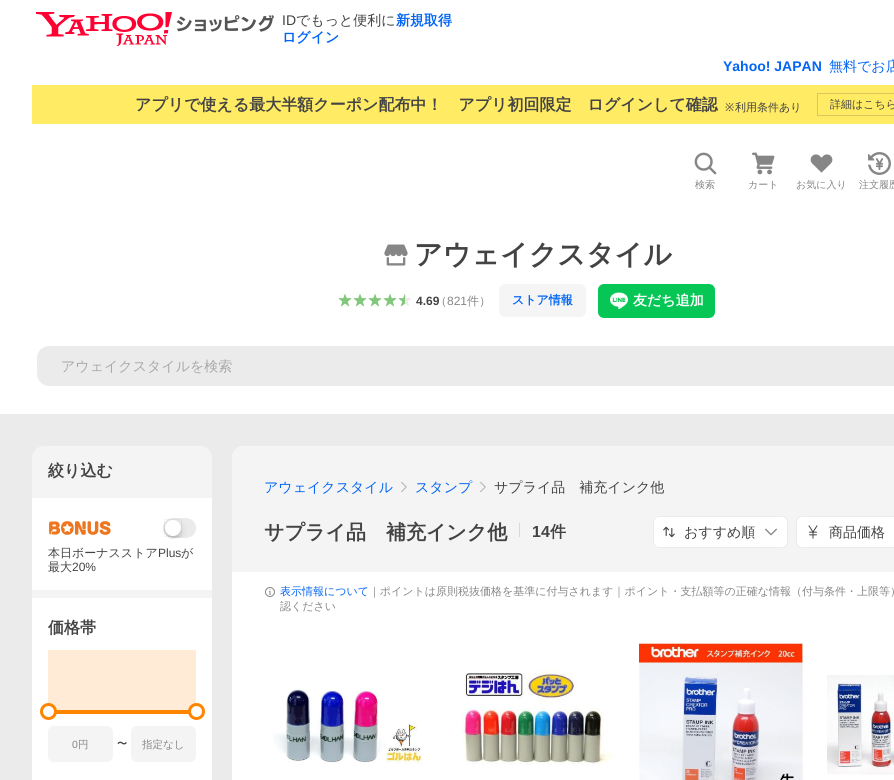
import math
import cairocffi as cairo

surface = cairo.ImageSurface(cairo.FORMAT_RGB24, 894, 780)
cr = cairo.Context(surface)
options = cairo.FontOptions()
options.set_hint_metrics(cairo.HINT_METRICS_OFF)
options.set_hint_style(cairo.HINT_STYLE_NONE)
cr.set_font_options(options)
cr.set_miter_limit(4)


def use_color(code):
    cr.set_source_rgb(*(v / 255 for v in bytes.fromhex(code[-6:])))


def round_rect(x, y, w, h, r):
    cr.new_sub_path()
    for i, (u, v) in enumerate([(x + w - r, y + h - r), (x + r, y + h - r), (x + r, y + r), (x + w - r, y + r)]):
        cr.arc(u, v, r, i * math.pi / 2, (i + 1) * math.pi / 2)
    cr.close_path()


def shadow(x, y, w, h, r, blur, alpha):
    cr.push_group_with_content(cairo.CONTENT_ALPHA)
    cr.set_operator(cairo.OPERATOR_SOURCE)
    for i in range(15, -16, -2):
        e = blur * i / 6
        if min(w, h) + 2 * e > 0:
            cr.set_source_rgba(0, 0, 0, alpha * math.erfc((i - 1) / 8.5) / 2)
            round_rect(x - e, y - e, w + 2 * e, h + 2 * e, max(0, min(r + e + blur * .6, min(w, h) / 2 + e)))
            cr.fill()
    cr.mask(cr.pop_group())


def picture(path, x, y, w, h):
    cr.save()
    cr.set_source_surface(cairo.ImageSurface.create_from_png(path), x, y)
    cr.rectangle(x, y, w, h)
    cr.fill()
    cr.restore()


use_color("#ffffff")
cr.paint()
picture("img1.png", 36, 12, 238, 34)
cr.select_font_face("Liberation Sans")
cr.set_font_size(14)
use_color("#434343")
cr.move_to(282, 25)
cr.show_text("ID")
cr.select_font_face("WenQuanYi Zen Hei Medium")
cr.move_to(296, 25)
cr.show_text("でもっと便利に")
cr.select_font_face("WenQuanYi Zen Hei", cairo.FONT_SLANT_NORMAL, cairo.FONT_WEIGHT_BOLD)
use_color("#0265f6")
cr.move_to(396, 25)
cr.show_text("新規取得")
cr.move_to(282, 42)
cr.show_text("ログイン")
cr.select_font_face("Liberation Sans", cairo.FONT_SLANT_NORMAL, cairo.FONT_WEIGHT_BOLD)
cr.move_to(723, 71)
cr.show_text("Yahoo! JAPAN")
cr.select_font_face("WenQuanYi Zen Hei Medium")
cr.move_to(829, 71)
cr.show_text("無料でお店")
use_color("#ffeb64")
cr.rectangle(32, 85, 862, 39)
cr.fill()
cr.select_font_face("WenQuanYi Zen Hei", cairo.FONT_SLANT_NORMAL, cairo.FONT_WEIGHT_BOLD)
cr.set_font_size(16)
use_color("#434343")
cr.move_to(135, 110)
cr.show_text("アプリで使える最大半額クーポン配布中！　アプリ初回限定　ログインして確認")
cr.select_font_face("Noto Sans")
cr.set_font_size(11)
cr.move_to(725, 111)
cr.show_text("※")
cr.select_font_face("WenQuanYi Zen Hei Medium")
cr.move_to(735, 111)
cr.show_text("利用条件あり")
cr.rectangle(817.5, 93.5, 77, 22)
use_color("#dbc65e")
cr.set_line_width(1)
cr.stroke()
use_color("#434343")
cr.move_to(830, 108)
cr.show_text("詳細はこちら")
picture("img2.png", 694, 152, 23, 23)
cr.set_font_size(10)
use_color("#868686")
cr.move_to(695, 188)
cr.show_text("検索")
picture("img3.png", 752, 152, 23, 23)
cr.move_to(748, 188)
cr.show_text("カート")
picture("img4.png", 810, 154, 23, 19)
cr.move_to(796, 188)
cr.show_text("お気に入り")
picture("img5.png", 868, 152, 23, 23)
cr.move_to(859, 188)
cr.show_text("注文履歴")
picture("img6.png", 384, 244, 24, 22)
cr.select_font_face("WenQuanYi Zen Hei", cairo.FONT_SLANT_NORMAL, cairo.FONT_WEIGHT_BOLD)
cr.set_font_size(28)
use_color("#434343")
cr.move_to(414, 264)
cr.show_text("アウェイクスタイル")
picture("img7.png", 338, 294, 14, 13)
picture("img7.png", 353, 294, 14, 13)
picture("img7.png", 368, 294, 14, 13)
picture("img7.png", 383, 294, 14, 13)
picture("img9.png", 399, 294, 12, 12)
picture("img8.png", 398, 294, 7, 13)
cr.select_font_face("Liberation Sans", cairo.FONT_SLANT_NORMAL, cairo.FONT_WEIGHT_BOLD)
cr.set_font_size(12)
cr.move_to(416, 305)
cr.show_text("4.69")
cr.select_font_face("WenQuanYi Zen Hei Medium")
use_color("#868686")
cr.move_to(435, 305)
cr.show_text("（")
cr.select_font_face("Liberation Sans")
cr.move_to(447, 305)
cr.show_text("821")
cr.select_font_face("WenQuanYi Zen Hei Medium")
cr.move_to(467, 305)
cr.show_text("件）")
use_color("#f5f5f5")
round_rect(499, 284, 87, 33, 6)
cr.fill()
cr.select_font_face("WenQuanYi Zen Hei", cairo.FONT_SLANT_NORMAL, cairo.FONT_WEIGHT_BOLD)
use_color("#0265f6")
cr.move_to(512, 304)
cr.show_text("ストア情報")
use_color("#06c755")
round_rect(598, 284, 117, 34, 6)
cr.fill()
picture("img10.png", 610, 292, 18, 17)
cr.set_font_size(14)
use_color("#ffffff")
cr.move_to(633, 305)
cr.show_text("友だち追加")
use_color("#ebebeb")
round_rect(37, 346, 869, 40, 12)
cr.fill()
cr.select_font_face("WenQuanYi Zen Hei Medium")
use_color("#a9a9a9")
cr.move_to(61, 371)
cr.show_text("アウェイクスタイルを検索")
use_color("#ebebeb")
cr.rectangle(0, 414, 894, 366)
cr.fill()
use_color("#f4f4f4")
round_rect(32, 446, 180, 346, 12)
cr.fill()
cr.select_font_face("WenQuanYi Zen Hei", cairo.FONT_SLANT_NORMAL, cairo.FONT_WEIGHT_BOLD)
cr.set_font_size(16)
use_color("#434343")
cr.move_to(48, 476)
cr.show_text("絞り込む")
use_color("#ffffff")
cr.rectangle(32, 498, 180, 92)
cr.fill()
picture("img11.png", 49, 521, 62, 14)
use_color("#ebebeb")
round_rect(163, 518, 33, 20, 10)
cr.fill()
use_color("#000000")
shadow(165, 523, 16, 16, 8, 0.5, 0.06)
cr.save()
round_rect(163, 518, 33, 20, 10)
cr.clip()
shadow(165, 523, 16, 16, 8, 4, 0.15)
cr.restore()
cr.rectangle(164.5, 519.5, 17, 17)
cr.set_source_rgba(0, 0, 0, 0.04)
cr.stroke()
use_color("#ffffff")
cr.arc(173, 528, 8, 0, 2 * math.pi)
cr.fill()
cr.select_font_face("WenQuanYi Zen Hei Medium")
cr.set_font_size(12)
use_color("#434343")
cr.move_to(48, 557)
cr.show_text("本日ボーナスストア")
cr.select_font_face("Liberation Sans")
cr.move_to(158, 557)
cr.show_text("Plus")
cr.select_font_face("WenQuanYi Zen Hei Medium")
cr.move_to(181, 557)
cr.show_text("が")
cr.move_to(48, 571)
cr.show_text("最大")
cr.select_font_face("Liberation Sans")
cr.move_to(72, 571)
cr.show_text("20%")
use_color("#ffffff")
cr.rectangle(32, 598, 180, 182)
cr.fill()
cr.select_font_face("WenQuanYi Zen Hei", cairo.FONT_SLANT_NORMAL, cairo.FONT_WEIGHT_BOLD)
cr.set_font_size(16)
use_color("#434343")
cr.move_to(48, 633)
cr.show_text("価格帯")
use_color("#ffebd6")
cr.rectangle(48, 650, 148, 60)
cr.fill()
use_color("#ff8400")
cr.rectangle(48, 710, 148, 4)
cr.fill()
use_color("#ffffff")
cr.arc(48.5, 711.5, 7, 0, 2 * math.pi)
cr.fill_preserve()
use_color("#ff8400")
cr.set_line_width(3)
cr.stroke()
use_color("#ffffff")
cr.arc(196.5, 711.5, 7, 0, 2 * math.pi)
cr.fill_preserve()
use_color("#ff8400")
cr.stroke()
use_color("#f4f4f4")
round_rect(48, 726, 65, 36, 6)
cr.fill()
cr.select_font_face("Liberation Sans")
cr.set_font_size(10.5)
use_color("#868686")
cr.move_to(72, 748)
cr.show_text("0")
cr.select_font_face("WenQuanYi Zen Hei Medium")
cr.move_to(78, 748)
cr.show_text("円")
cr.select_font_face("WenQuanYi Zen Hei", cairo.FONT_SLANT_NORMAL, cairo.FONT_WEIGHT_BOLD)
cr.set_font_size(10)
use_color("#434343")
cr.move_to(117, 747)
cr.show_text("〜")
use_color("#f4f4f4")
round_rect(131, 726, 65, 36, 6)
cr.fill()
cr.select_font_face("WenQuanYi Zen Hei Medium")
cr.set_font_size(10.5)
use_color("#868686")
cr.move_to(142, 748)
cr.show_text("指定なし")
use_color("#ffffff")
round_rect(232, 446, 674, 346, 12)
cr.fill()
use_color("#f4f4f4")
cr.new_path()
cr.move_to(244, 446)
cr.line_to(894, 446)
cr.curve_to(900.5, 446, 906, 451.5, 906, 458)
cr.line_to(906, 572)
cr.line_to(232, 572)
cr.line_to(232, 458)
cr.curve_to(232, 451.5, 237.5, 446, 244, 446)
cr.close_path()
cr.fill()
cr.set_font_size(14)
use_color("#0265f6")
cr.move_to(264, 492)
cr.show_text("アウェイクスタイル")
picture("img12.png", 401, 481, 6, 12)
cr.move_to(415, 492)
cr.show_text("スタンプ")
picture("img12.png", 480, 481, 6, 12)
use_color("#434343")
cr.move_to(494, 492)
cr.show_text("サプライ品　補充インク他")
cr.select_font_face("WenQuanYi Zen Hei", cairo.FONT_SLANT_NORMAL, cairo.FONT_WEIGHT_BOLD)
cr.set_font_size(20)
cr.move_to(264, 539)
cr.show_text("サプライ品　補充インク他")
use_color("#d9d9d9")
cr.rectangle(519, 523, 1, 14)
cr.fill()
cr.select_font_face("Liberation Sans", cairo.FONT_SLANT_NORMAL, cairo.FONT_WEIGHT_BOLD)
cr.set_font_size(16)
use_color("#434343")
cr.move_to(532, 537)
cr.show_text("14")
cr.select_font_face("WenQuanYi Zen Hei", cairo.FONT_SLANT_NORMAL, cairo.FONT_WEIGHT_BOLD)
cr.move_to(550, 537)
cr.show_text("件")
use_color("#ffffff")
round_rect(653.5, 516.5, 134, 31, 5.5)
cr.fill_preserve()
use_color("#ebebeb")
cr.set_line_width(1)
cr.stroke()
picture("img13.png", 663, 526, 12, 12)
cr.select_font_face("WenQuanYi Zen Hei Medium")
cr.set_font_size(14)
use_color("#434343")
cr.move_to(684, 537)
cr.show_text("おすすめ順")
picture("img14.png", 765, 528, 12, 8)
use_color("#ffffff")
round_rect(796.5, 516.5, 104, 31, 5.5)
cr.fill_preserve()
use_color("#ebebeb")
cr.stroke()
picture("img15.png", 808, 525, 10, 14)
use_color("#434343")
cr.move_to(829, 537)
cr.show_text("商品価格")
picture("img16.png", 265, 587, 10, 10)
cr.set_font_size(11)
use_color("#0265f6")
cr.move_to(280, 595)
cr.show_text("表示情報について")
use_color("#868686")
cr.move_to(369, 595)
cr.show_text("｜ポイントは原則税抜価格を基準に付与されます｜ポイント・支払額等の正確な情報（付与条件・上限等）")
cr.move_to(280, 610)
cr.show_text("認ください")
picture("img17.png", 273, 687, 149, 78)
picture("img18.png", 461, 669, 154, 96)
picture("img19.png", 639, 643, 164, 137)
picture("img20.png", 827, 675, 67, 100)
surface.write_to_png("result.png")
